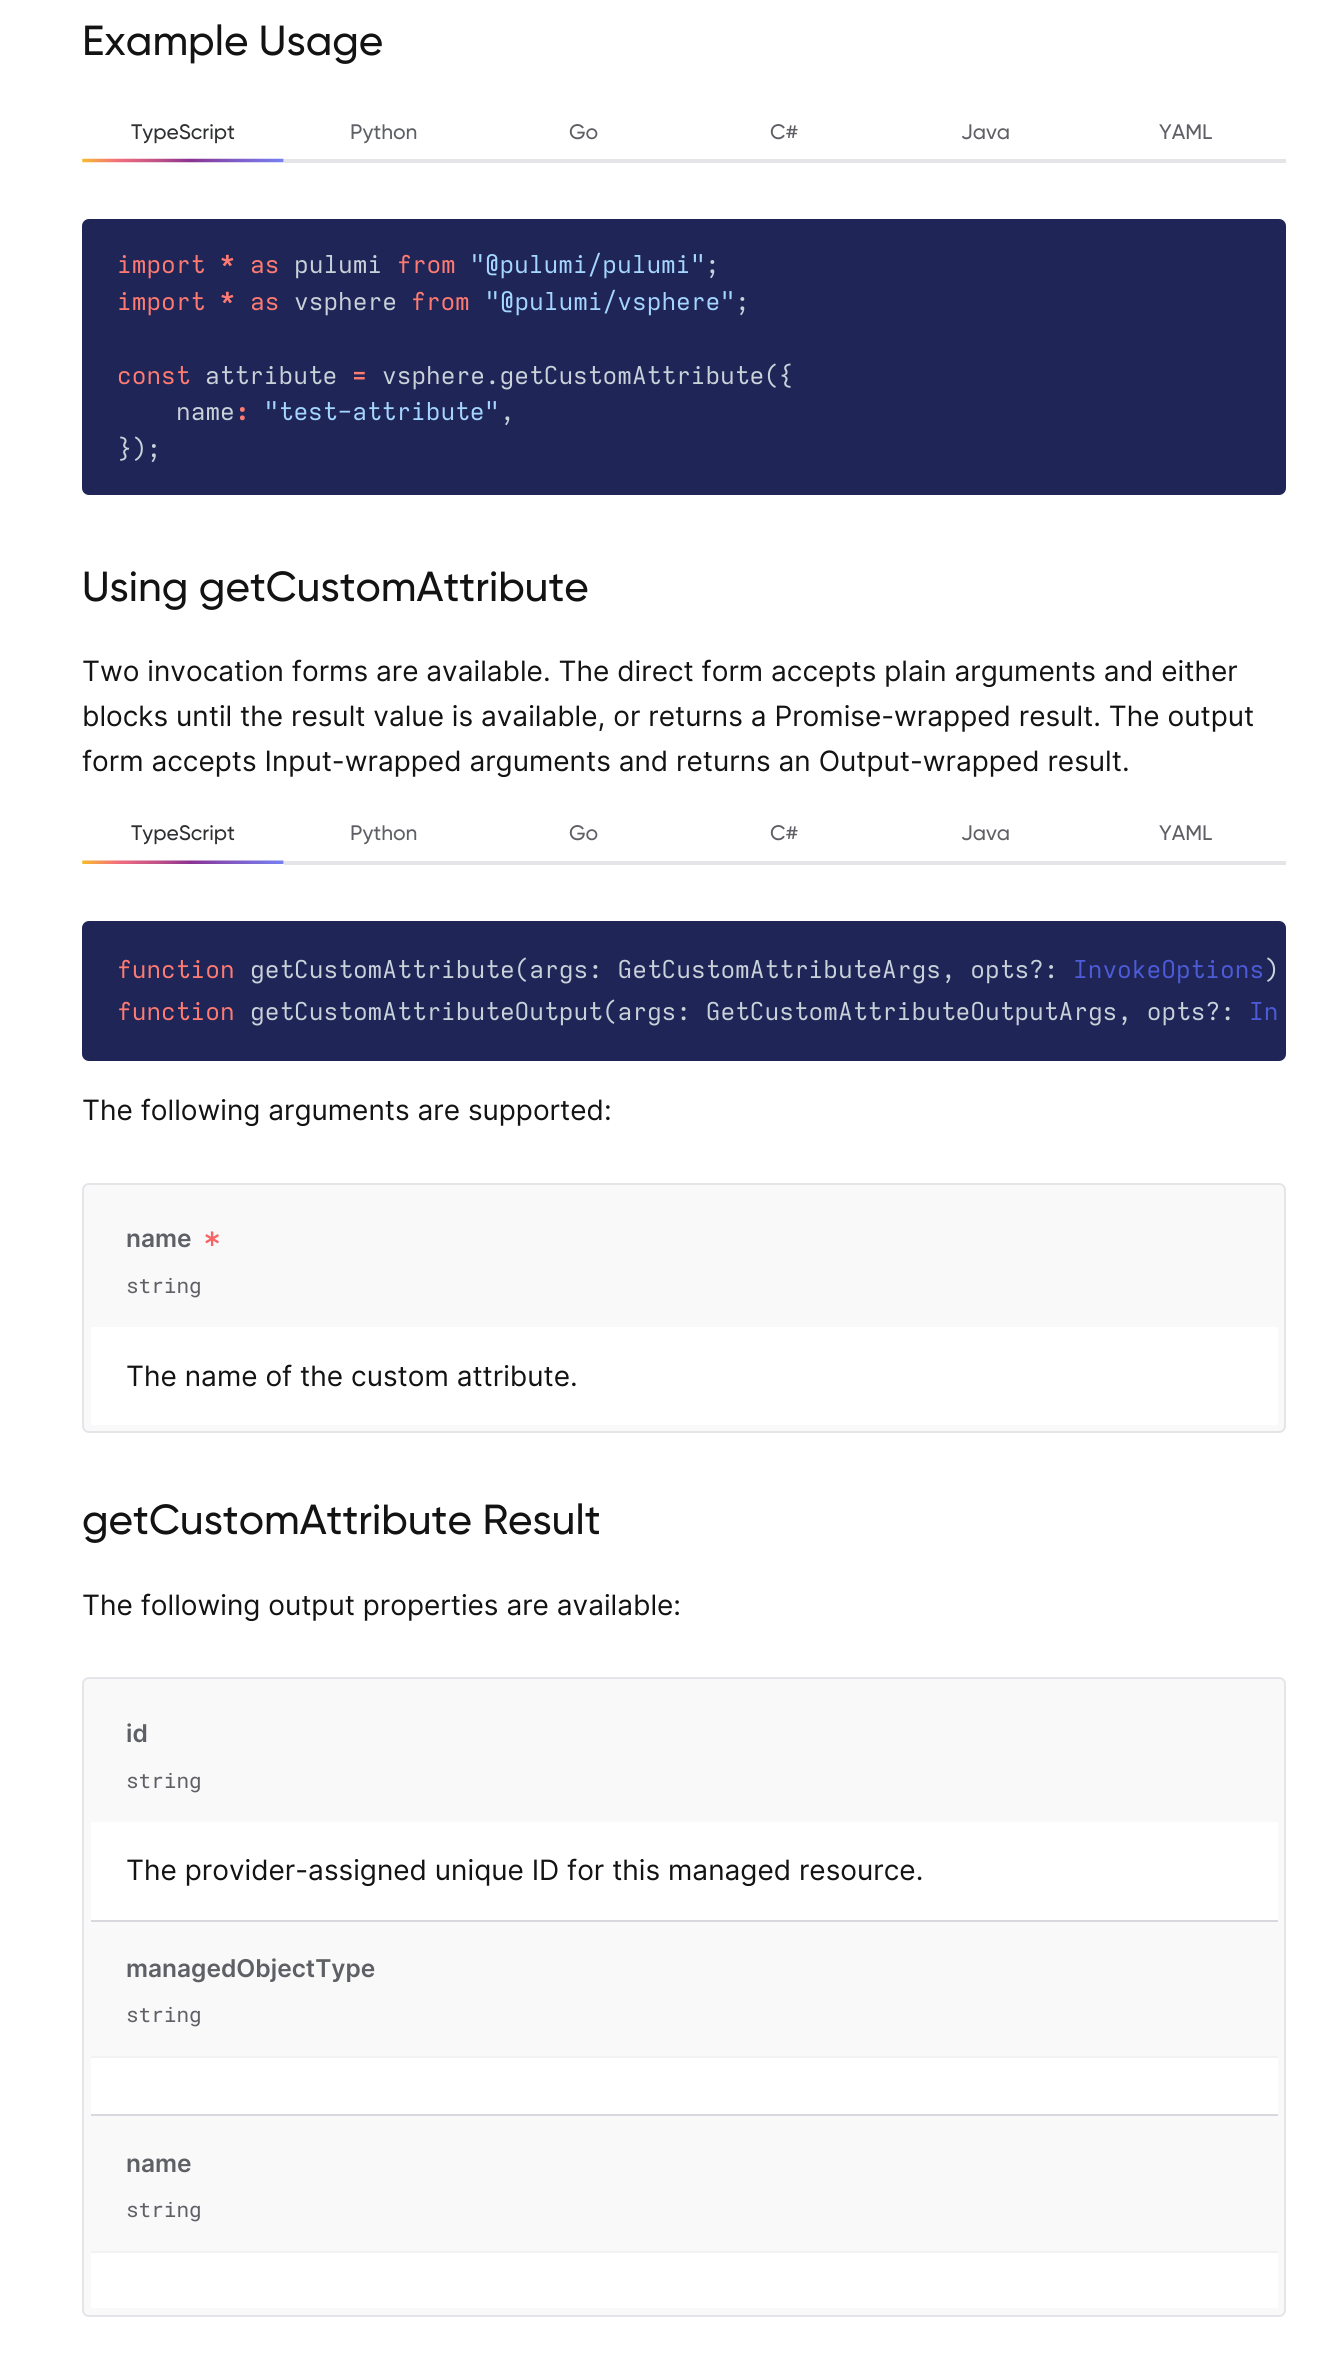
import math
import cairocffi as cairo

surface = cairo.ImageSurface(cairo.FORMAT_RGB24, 1328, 2376)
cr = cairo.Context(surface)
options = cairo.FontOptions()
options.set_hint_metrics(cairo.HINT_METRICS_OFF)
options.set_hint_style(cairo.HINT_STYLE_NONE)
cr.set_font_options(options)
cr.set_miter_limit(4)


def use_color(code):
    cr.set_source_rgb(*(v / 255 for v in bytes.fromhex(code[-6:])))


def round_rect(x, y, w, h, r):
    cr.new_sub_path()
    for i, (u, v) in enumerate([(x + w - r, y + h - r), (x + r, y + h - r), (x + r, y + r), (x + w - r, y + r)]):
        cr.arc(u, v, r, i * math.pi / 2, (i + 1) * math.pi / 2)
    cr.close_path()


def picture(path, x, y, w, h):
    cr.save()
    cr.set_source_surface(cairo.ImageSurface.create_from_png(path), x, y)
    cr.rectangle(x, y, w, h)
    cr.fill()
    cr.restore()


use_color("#ffffff")
cr.paint()
cr.select_font_face("Gilroy Medium")
cr.set_font_size(42)
use_color("#131314")
cr.move_to(82, 55)
cr.show_text("Example Usage")
picture("img1.png", 82, 158, 202, 5)
cr.set_font_size(21)
use_color("#2f3032")
cr.move_to(131, 139)
cr.show_text("TypeScript")
use_color("#e5e5e9")
cr.rectangle(284, 159, 1002, 4)
cr.fill()
use_color("#5f6065")
cr.move_to(350, 139)
cr.show_text("Python")
cr.move_to(569, 139)
cr.show_text("Go")
cr.move_to(770, 139)
cr.show_text("C#")
cr.move_to(961, 139)
cr.show_text("Java")
cr.move_to(1159, 139)
cr.show_text("YAML")
use_color("#1f2557")
round_rect(82, 219, 1204, 276, 7)
cr.fill()
cr.select_font_face("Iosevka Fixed")
cr.set_font_size(24.5)
use_color("#ff7b72")
cr.move_to(117, 273)
cr.show_text("import")
cr.select_font_face("Iosevka Fixed", cairo.FONT_SLANT_NORMAL, cairo.FONT_WEIGHT_BOLD)
cr.move_to(220, 273)
cr.show_text("*")
cr.select_font_face("Iosevka Fixed")
cr.move_to(250, 273)
cr.show_text("as")
use_color("#c9d1d9")
cr.move_to(294, 273)
cr.show_text("pulumi")
use_color("#ff7b72")
cr.move_to(397, 273)
cr.show_text("from")
use_color("#a5d6ff")
cr.move_to(470, 273)
cr.show_text("\"@pulumi/pulumi\"")
use_color("#c9d1d9")
cr.move_to(705, 273)
cr.show_text(";")
use_color("#ff7b72")
cr.move_to(117, 310)
cr.show_text("import")
cr.select_font_face("Iosevka Fixed", cairo.FONT_SLANT_NORMAL, cairo.FONT_WEIGHT_BOLD)
cr.move_to(220, 310)
cr.show_text("*")
cr.select_font_face("Iosevka Fixed")
cr.move_to(250, 310)
cr.show_text("as")
use_color("#c9d1d9")
cr.move_to(294, 310)
cr.show_text("vsphere")
use_color("#ff7b72")
cr.move_to(411, 310)
cr.show_text("from")
use_color("#a5d6ff")
cr.move_to(485, 310)
cr.show_text("\"@pulumi/vsphere\"")
use_color("#c9d1d9")
cr.move_to(735, 310)
cr.show_text(";")
use_color("#ff7b72")
cr.move_to(117, 384)
cr.show_text("const")
use_color("#c9d1d9")
cr.move_to(205, 384)
cr.show_text("attribute")
cr.select_font_face("Iosevka Fixed", cairo.FONT_SLANT_NORMAL, cairo.FONT_WEIGHT_BOLD)
use_color("#ff7b72")
cr.move_to(352, 384)
cr.show_text("=")
cr.select_font_face("Iosevka Fixed")
use_color("#c9d1d9")
cr.move_to(382, 384)
cr.show_text("vsphere.getCustomAttribute({")
cr.move_to(176, 420)
cr.show_text("name")
cr.select_font_face("Iosevka Fixed", cairo.FONT_SLANT_NORMAL, cairo.FONT_WEIGHT_BOLD)
use_color("#ff7b72")
cr.move_to(235, 420)
cr.show_text(":")
cr.select_font_face("Iosevka Fixed")
use_color("#a5d6ff")
cr.move_to(264, 420)
cr.show_text("\"test-attribute\"")
use_color("#c9d1d9")
cr.move_to(500, 420)
cr.show_text(",")
cr.move_to(117, 457)
cr.show_text("});")
cr.select_font_face("Gilroy Medium")
cr.set_font_size(42)
use_color("#131314")
cr.move_to(82, 601)
cr.show_text("Using getCustomAttribute")
cr.select_font_face("Inter")
cr.set_font_size(28)
cr.move_to(82, 681)
cr.show_text("Two invocation forms are available. The direct form accepts plain arguments and either")
cr.move_to(82, 726)
cr.show_text("blocks until the result value is available, or returns a Promise-wrapped result. The output")
cr.move_to(82, 771)
cr.show_text("form accepts Input-wrapped arguments and returns an Output-wrapped result.")
picture("img2.png", 82, 860, 202, 4)
cr.select_font_face("Gilroy Medium")
cr.set_font_size(21)
use_color("#2f3032")
cr.move_to(131, 840)
cr.show_text("TypeScript")
use_color("#e5e5e9")
cr.rectangle(284, 861, 1002, 4)
cr.fill()
use_color("#5f6065")
cr.move_to(350, 840)
cr.show_text("Python")
cr.move_to(569, 840)
cr.show_text("Go")
cr.move_to(770, 840)
cr.show_text("C#")
cr.move_to(961, 840)
cr.show_text("Java")
cr.move_to(1159, 840)
cr.show_text("YAML")
use_color("#1f2557")
round_rect(82, 921, 1204, 140, 7)
cr.fill()
cr.select_font_face("Iosevka Fixed")
cr.set_font_size(24.5)
use_color("#ff7b72")
cr.move_to(117, 978)
cr.show_text("function")
use_color("#c9d1d9")
cr.move_to(250, 978)
cr.show_text("getCustomAttribute(args: GetCustomAttributeArgs, opts?:")
use_color("#4d5bd9")
cr.move_to(1073, 978)
cr.show_text("InvokeOptions")
use_color("#c9d1d9")
cr.move_to(1264, 978)
cr.show_text(")")
use_color("#ff7b72")
cr.move_to(117, 1020)
cr.show_text("function")
use_color("#c9d1d9")
cr.move_to(250, 1020)
cr.show_text("getCustomAttributeOutput(args: GetCustomAttributeOutputArgs, opts?:")
use_color("#4d5bd9")
cr.move_to(1249, 1020)
cr.show_text("In")
cr.select_font_face("Inter")
cr.set_font_size(28)
use_color("#131314")
cr.move_to(82, 1120)
cr.show_text("The following arguments are supported:")
use_color("#f9f9fa")
round_rect(83, 1184, 1202, 248, 6)
cr.fill_preserve()
use_color("#e5e5e9")
cr.stroke()
cr.select_font_face("Inter SemiBold")
cr.set_font_size(24.5)
use_color("#5f6065")
cr.move_to(126, 1247)
cr.show_text("name")
picture("img3.png", 205, 1231, 14, 16)
cr.select_font_face("Roboto Mono")
cr.set_font_size(21)
cr.move_to(126, 1293)
cr.show_text("string")
use_color("#ffffff")
cr.rectangle(91, 1327, 1187, 98)
cr.fill()
cr.select_font_face("Inter")
cr.set_font_size(28)
use_color("#131314")
cr.move_to(126, 1386)
cr.show_text("The name of the custom attribute.")
cr.select_font_face("Gilroy Medium")
cr.set_font_size(42)
cr.move_to(82, 1534)
cr.show_text("getCustomAttribute Result")
cr.select_font_face("Inter")
cr.set_font_size(28)
cr.move_to(82, 1615)
cr.show_text("The following output properties are available:")
use_color("#f9f9fa")
round_rect(83, 1678, 1202, 638, 6)
cr.fill_preserve()
use_color("#e5e5e9")
cr.stroke()
cr.select_font_face("Inter SemiBold")
cr.set_font_size(24.5)
use_color("#5f6065")
cr.move_to(126, 1742)
cr.show_text("id")
cr.select_font_face("Roboto Mono")
cr.set_font_size(21)
cr.move_to(126, 1788)
cr.show_text("string")
use_color("#ffffff")
cr.rectangle(91, 1822, 1187, 98)
cr.fill()
cr.select_font_face("Inter")
cr.set_font_size(28)
use_color("#131314")
cr.move_to(126, 1880)
cr.show_text("The provider-assigned unique ID for this managed resource.")
use_color("#d8d9df")
cr.rectangle(91, 1920, 1187, 2)
cr.fill()
cr.select_font_face("Inter SemiBold")
cr.set_font_size(24.5)
use_color("#5f6065")
cr.move_to(126, 1977)
cr.show_text("managedObjectType")
cr.select_font_face("Roboto Mono")
cr.set_font_size(21)
cr.move_to(126, 2022)
cr.show_text("string")
use_color("#ffffff")
cr.rectangle(91, 2058, 1187, 56)
cr.fill()
use_color("#f2f2f4")
cr.rectangle(91, 2056, 1187, 2)
cr.fill()
use_color("#d8d9df")
cr.rectangle(91, 2114, 1187, 2)
cr.fill()
cr.select_font_face("Inter SemiBold")
cr.set_font_size(24.5)
use_color("#5f6065")
cr.move_to(126, 2172)
cr.show_text("name")
cr.select_font_face("Roboto Mono")
cr.set_font_size(21)
cr.move_to(126, 2217)
cr.show_text("string")
use_color("#ffffff")
cr.rectangle(91, 2253, 1187, 55)
cr.fill()
use_color("#f2f2f4")
cr.rectangle(91, 2251, 1187, 2)
cr.fill()
surface.write_to_png("result.png")
